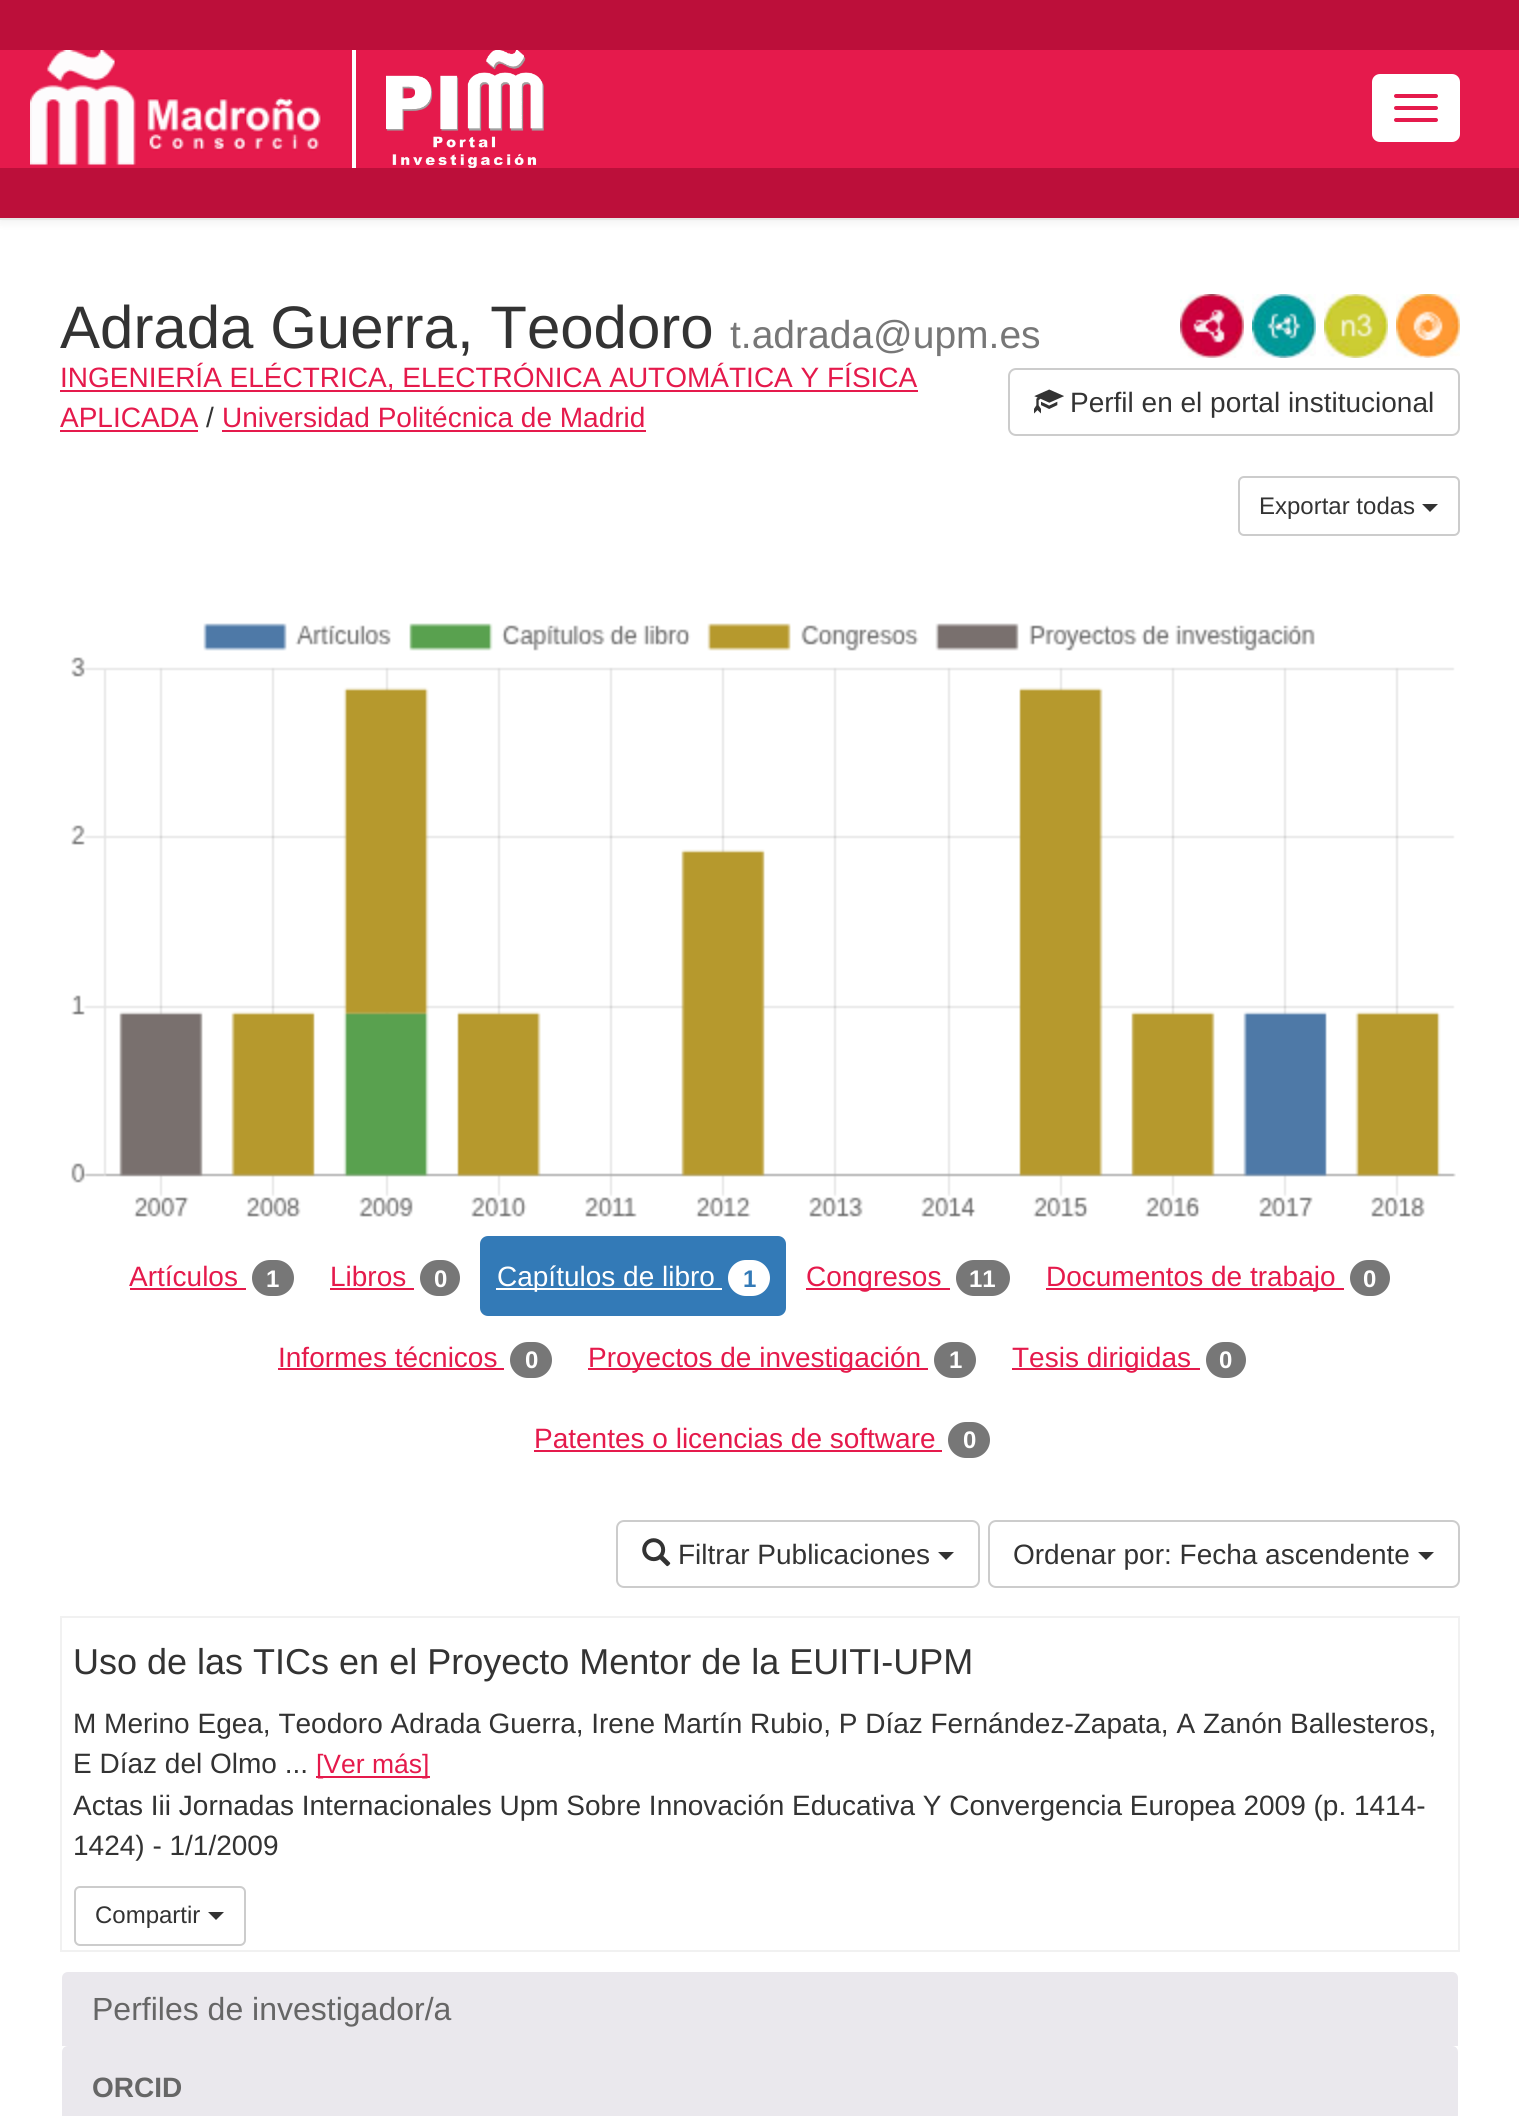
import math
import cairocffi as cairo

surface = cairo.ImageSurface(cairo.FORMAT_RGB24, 1519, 2116)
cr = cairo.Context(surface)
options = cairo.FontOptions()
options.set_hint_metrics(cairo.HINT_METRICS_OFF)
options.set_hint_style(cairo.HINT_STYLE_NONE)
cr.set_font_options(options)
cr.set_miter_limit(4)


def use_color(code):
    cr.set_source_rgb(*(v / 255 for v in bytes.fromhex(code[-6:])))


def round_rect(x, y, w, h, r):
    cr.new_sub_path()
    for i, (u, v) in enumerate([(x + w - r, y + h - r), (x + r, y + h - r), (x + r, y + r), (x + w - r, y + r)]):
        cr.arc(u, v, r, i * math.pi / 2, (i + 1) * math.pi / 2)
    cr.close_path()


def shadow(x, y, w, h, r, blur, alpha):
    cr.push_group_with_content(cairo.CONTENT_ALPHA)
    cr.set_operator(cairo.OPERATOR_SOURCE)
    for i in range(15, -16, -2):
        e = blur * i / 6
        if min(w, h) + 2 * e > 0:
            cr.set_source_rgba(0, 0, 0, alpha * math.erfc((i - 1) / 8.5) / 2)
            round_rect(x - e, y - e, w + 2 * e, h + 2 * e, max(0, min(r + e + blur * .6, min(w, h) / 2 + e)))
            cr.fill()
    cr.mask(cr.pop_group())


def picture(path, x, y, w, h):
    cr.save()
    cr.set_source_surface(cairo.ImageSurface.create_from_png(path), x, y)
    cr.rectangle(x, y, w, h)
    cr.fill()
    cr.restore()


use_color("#ffffff")
cr.paint()
use_color("#000000")
shadow(0, 2, 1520, 220, 0, 5, 0.07)
use_color("#e7e7e7")
cr.rectangle(0, 218, 1519, 2)
cr.fill()
use_color("#e51a4c")
cr.rectangle(0, 50, 1519, 118)
cr.fill()
use_color("#bc0f3a")
cr.rectangle(0, 0, 1519, 50)
cr.fill()
cr.rectangle(0, 168, 1519, 50)
cr.fill()
use_color("#ffffff")
cr.rectangle(352, 50, 4, 118)
cr.fill()
picture("img1.png", 30, 50, 292, 116)
picture("img2.png", 386, 50, 158, 118)
round_rect(1372, 74, 88, 68, 8)
cr.fill()
use_color("#e51a4c")
round_rect(1394, 94, 44, 4, 2)
cr.fill()
round_rect(1394, 106, 44, 4, 2)
cr.fill()
round_rect(1394, 118, 44, 4, 2)
cr.fill()
cr.select_font_face("Liberation Sans")
cr.set_font_size(60)
use_color("#333333")
cr.move_to(60, 348)
cr.show_text("Adrada Guerra, Teodoro")
cr.set_font_size(39)
use_color("#777777")
cr.move_to(730, 348)
cr.show_text("t.adrada@upm.es")
picture("img3.png", 1180, 294, 64, 64)
picture("img4.png", 1252, 294, 64, 64)
picture("img5.png", 1324, 294, 64, 64)
picture("img6.png", 1396, 294, 64, 64)
use_color("#e51a4c")
cr.rectangle(60, 390, 858, 2)
cr.fill()
cr.set_font_size(28)
cr.move_to(60, 387)
cr.show_text("INGENIERÍA ELÉCTRICA, ELECTRÓNICA AUTOMÁTICA Y FÍSICA")
cr.move_to(60, 427)
cr.show_text("APLICADA")
cr.rectangle(60, 430, 138, 2)
cr.fill()
use_color("#333333")
cr.move_to(206, 427)
cr.show_text("/")
use_color("#e51a4c")
cr.move_to(222, 427)
cr.show_text("Universidad Politécnica de Madrid")
cr.rectangle(222, 430, 424, 2)
cr.fill()
round_rect(1009, 369, 450, 66, 7)
use_color("#cccccc")
cr.stroke()
picture("img7.png", 1034, 389, 30, 25)
use_color("#333333")
cr.move_to(1070, 412)
cr.show_text("Perfil en el portal institucional")
round_rect(1239, 477, 220, 58, 5)
use_color("#cccccc")
cr.stroke()
cr.set_font_size(24)
use_color("#333333")
cr.move_to(1259, 514)
cr.show_text("Exportar todas")
cr.new_path()
cr.move_to(1422, 504)
cr.line_to(1438, 504)
cr.line_to(1430, 512)
cr.close_path()
cr.fill()
picture("img8.png", 71, 623, 1385, 594)
cr.set_font_size(28)
use_color("#e51a4c")
cr.move_to(129, 1286)
cr.show_text("Artículos")
cr.rectangle(130, 1288, 116, 2)
cr.fill()
use_color("#777777")
round_rect(252, 1260, 42, 36, 18)
cr.fill()
cr.select_font_face("Liberation Sans", cairo.FONT_SLANT_NORMAL, cairo.FONT_WEIGHT_BOLD)
cr.set_font_size(24)
use_color("#ffffff")
cr.move_to(266, 1287)
cr.show_text("1")
cr.select_font_face("Liberation Sans")
cr.set_font_size(28)
use_color("#e51a4c")
cr.move_to(330, 1286)
cr.show_text("Libros")
cr.rectangle(330, 1288, 84, 2)
cr.fill()
use_color("#777777")
round_rect(420, 1260, 40, 36, 18)
cr.fill()
cr.select_font_face("Liberation Sans", cairo.FONT_SLANT_NORMAL, cairo.FONT_WEIGHT_BOLD)
cr.set_font_size(24)
use_color("#ffffff")
cr.move_to(434, 1287)
cr.show_text("0")
use_color("#337ab7")
round_rect(480, 1236, 306, 80, 8)
cr.fill()
use_color("#ffffff")
cr.rectangle(496, 1288, 226, 2)
cr.fill()
cr.select_font_face("Liberation Sans")
cr.set_font_size(28)
cr.move_to(497, 1286)
cr.show_text("Capítulos de libro")
round_rect(728, 1260, 42, 36, 18)
cr.fill()
cr.select_font_face("Liberation Sans", cairo.FONT_SLANT_NORMAL, cairo.FONT_WEIGHT_BOLD)
cr.set_font_size(24)
use_color("#337ab7")
cr.move_to(743, 1287)
cr.show_text("1")
use_color("#e51a4c")
cr.rectangle(806, 1288, 144, 2)
cr.fill()
cr.select_font_face("Liberation Sans")
cr.set_font_size(28)
cr.move_to(806, 1286)
cr.show_text("Congresos")
use_color("#777777")
round_rect(956, 1260, 54, 36, 18)
cr.fill()
cr.select_font_face("Liberation Sans", cairo.FONT_SLANT_NORMAL, cairo.FONT_WEIGHT_BOLD)
cr.set_font_size(24)
use_color("#ffffff")
cr.move_to(969, 1287)
cr.show_text("11")
use_color("#e51a4c")
cr.rectangle(1046, 1288, 298, 2)
cr.fill()
cr.select_font_face("Liberation Sans")
cr.set_font_size(28)
cr.move_to(1046, 1286)
cr.show_text("Documentos de trabajo")
use_color("#777777")
round_rect(1350, 1260, 40, 36, 18)
cr.fill()
cr.select_font_face("Liberation Sans", cairo.FONT_SLANT_NORMAL, cairo.FONT_WEIGHT_BOLD)
cr.set_font_size(24)
use_color("#ffffff")
cr.move_to(1363, 1287)
cr.show_text("0")
cr.select_font_face("Liberation Sans")
cr.set_font_size(28)
use_color("#e51a4c")
cr.move_to(278, 1367)
cr.show_text("Informes técnicos")
cr.rectangle(278, 1368, 226, 2)
cr.fill()
use_color("#777777")
round_rect(510, 1342, 42, 36, 18)
cr.fill()
cr.select_font_face("Liberation Sans", cairo.FONT_SLANT_NORMAL, cairo.FONT_WEIGHT_BOLD)
cr.set_font_size(24)
use_color("#ffffff")
cr.move_to(525, 1368)
cr.show_text("0")
use_color("#e51a4c")
cr.rectangle(588, 1368, 340, 2)
cr.fill()
cr.select_font_face("Liberation Sans")
cr.set_font_size(28)
cr.move_to(588, 1367)
cr.show_text("Proyectos de investigación")
use_color("#777777")
round_rect(934, 1342, 42, 36, 18)
cr.fill()
cr.select_font_face("Liberation Sans", cairo.FONT_SLANT_NORMAL, cairo.FONT_WEIGHT_BOLD)
cr.set_font_size(24)
use_color("#ffffff")
cr.move_to(949, 1368)
cr.show_text("1")
use_color("#e51a4c")
cr.rectangle(1012, 1368, 188, 2)
cr.fill()
cr.select_font_face("Liberation Sans")
cr.set_font_size(28)
cr.move_to(1012, 1367)
cr.show_text("Tesis dirigidas")
use_color("#777777")
round_rect(1206, 1342, 40, 36, 18)
cr.fill()
cr.select_font_face("Liberation Sans", cairo.FONT_SLANT_NORMAL, cairo.FONT_WEIGHT_BOLD)
cr.set_font_size(24)
use_color("#ffffff")
cr.move_to(1219, 1368)
cr.show_text("0")
cr.select_font_face("Liberation Sans")
cr.set_font_size(28)
use_color("#e51a4c")
cr.move_to(534, 1448)
cr.show_text("Patentes o licencias de software")
cr.rectangle(534, 1450, 408, 2)
cr.fill()
use_color("#777777")
round_rect(948, 1422, 42, 36, 18)
cr.fill()
cr.select_font_face("Liberation Sans", cairo.FONT_SLANT_NORMAL, cairo.FONT_WEIGHT_BOLD)
cr.set_font_size(24)
use_color("#ffffff")
cr.move_to(963, 1448)
cr.show_text("0")
round_rect(617, 1521, 362, 66, 7)
use_color("#cccccc")
cr.stroke()
picture("img9.png", 642, 1538, 29, 29)
cr.select_font_face("Liberation Sans")
cr.set_font_size(28)
use_color("#333333")
cr.move_to(678, 1564)
cr.show_text("Filtrar Publicaciones")
cr.new_path()
cr.move_to(938, 1552)
cr.line_to(954, 1552)
cr.line_to(946, 1560)
cr.close_path()
cr.fill()
round_rect(989, 1521, 470, 66, 7)
use_color("#cccccc")
cr.stroke()
use_color("#333333")
cr.move_to(1013, 1564)
cr.show_text("Ordenar por: Fecha ascendente")
cr.new_path()
cr.move_to(1418, 1552)
cr.line_to(1434, 1552)
cr.line_to(1426, 1560)
cr.close_path()
cr.fill()
cr.rectangle(61, 1617, 1398, 334)
use_color("#f1f1f1")
cr.stroke()
cr.set_font_size(36)
use_color("#333333")
cr.move_to(73, 1674)
cr.show_text("Uso de las TICs en el Proyecto Mentor de la EUITI-UPM")
cr.set_font_size(28)
cr.move_to(73, 1733)
cr.show_text("M Merino Egea, Teodoro Adrada Guerra, Irene Martín Rubio, P Díaz Fernández-Zapata, A Zanón Ballesteros,")
cr.move_to(73, 1773)
cr.show_text("E Díaz del Olmo ...")
use_color("#e51a4c")
cr.rectangle(316, 1776, 114, 2)
cr.fill()
cr.set_font_size(26.5)
cr.move_to(316, 1773)
cr.show_text("[Ver más]")
cr.set_font_size(28)
use_color("#333333")
cr.move_to(73, 1815)
cr.show_text("Actas Iii Jornadas Internacionales Upm Sobre Innovación Educativa Y Convergencia Europea 2009 (p. 1414-")
cr.move_to(73, 1855)
cr.show_text("1424) - 1/1/2009")
round_rect(75, 1887, 170, 58, 5)
use_color("#cccccc")
cr.stroke()
cr.set_font_size(24)
use_color("#333333")
cr.move_to(95, 1923)
cr.show_text("Compartir")
cr.new_path()
cr.move_to(208, 1912)
cr.line_to(224, 1912)
cr.line_to(216, 1920)
cr.close_path()
cr.fill()
use_color("#eae8ed")
cr.new_path()
cr.move_to(68, 1972)
cr.line_to(1452, 1972)
cr.curve_to(1455.5, 1972, 1458, 1974.5, 1458, 1978)
cr.line_to(1458, 2046)
cr.line_to(62, 2046)
cr.line_to(62, 1978)
cr.curve_to(62, 1974.5, 64.5, 1972, 68, 1972)
cr.close_path()
cr.fill()
cr.set_font_size(32)
use_color("#666666")
cr.move_to(92, 2020)
cr.show_text("Perfiles de investigador/a")
use_color("#eae8ed")
cr.new_path()
cr.move_to(68, 2046)
cr.line_to(1452, 2046)
cr.curve_to(1455.5, 2046, 1458, 2048.5, 1458, 2052)
cr.line_to(1458, 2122)
cr.line_to(62, 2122)
cr.line_to(62, 2052)
cr.curve_to(62, 2048.5, 64.5, 2046, 68, 2046)
cr.close_path()
cr.fill()
cr.select_font_face("Liberation Sans", cairo.FONT_SLANT_NORMAL, cairo.FONT_WEIGHT_BOLD)
cr.set_font_size(28)
use_color("#666666")
cr.move_to(92, 2097)
cr.show_text("ORCID")
surface.write_to_png("result.png")
